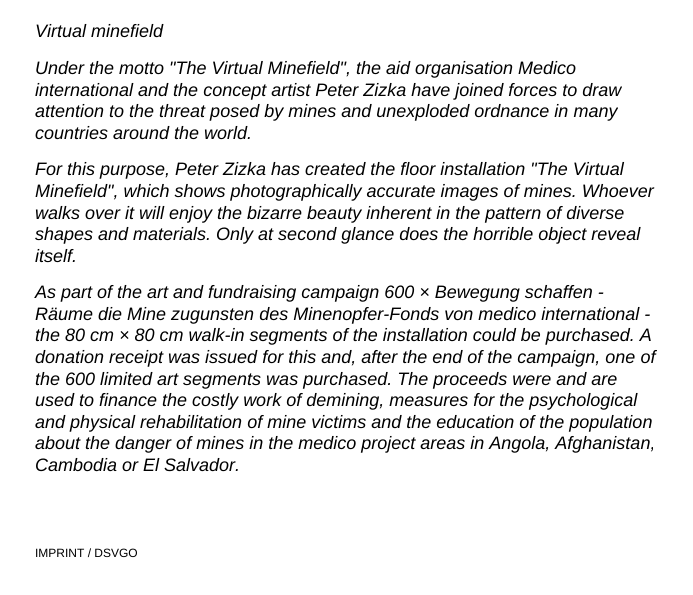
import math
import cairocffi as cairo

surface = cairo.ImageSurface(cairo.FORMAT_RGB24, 693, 595)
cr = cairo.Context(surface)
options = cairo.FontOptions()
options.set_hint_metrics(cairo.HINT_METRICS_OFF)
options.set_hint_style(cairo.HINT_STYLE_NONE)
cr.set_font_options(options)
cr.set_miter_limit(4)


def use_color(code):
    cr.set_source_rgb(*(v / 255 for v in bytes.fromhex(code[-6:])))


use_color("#ffffff")
cr.paint()
cr.select_font_face("Liberation Sans", cairo.FONT_SLANT_ITALIC)
cr.set_font_size(18)
use_color("#000000")
cr.move_to(35, 37)
cr.show_text("Virtual minefield")
cr.move_to(35, 74)
cr.show_text("Under the motto \"The Virtual Minefield\", the aid organisation Medico")
cr.move_to(35, 96)
cr.show_text("international and the concept artist Peter Zizka have joined forces to draw")
cr.move_to(35, 117)
cr.show_text("attention to the threat posed by mines and unexploded ordnance in many")
cr.move_to(35, 139)
cr.show_text("countries around the world.")
cr.move_to(35, 175)
cr.show_text("For this purpose, Peter Zizka has created the floor installation \"The Virtual")
cr.move_to(35, 197)
cr.show_text("Minefield\", which shows photographically accurate images of mines. Whoever")
cr.move_to(35, 219)
cr.show_text("walks over it will enjoy the bizarre beauty inherent in the pattern of diverse")
cr.move_to(35, 240)
cr.show_text("shapes and materials. Only at second glance does the horrible object reveal")
cr.move_to(35, 262)
cr.show_text("itself.")
cr.move_to(35, 298)
cr.show_text("As part of the art and fundraising campaign 600 × Bewegung schaffen -")
cr.move_to(35, 320)
cr.show_text("Räume die Mine zugunsten des Minenopfer-Fonds von medico international -")
cr.move_to(35, 341)
cr.show_text("the 80 cm × 80 cm walk-in segments of the installation could be purchased. A")
cr.move_to(35, 363)
cr.show_text("donation receipt was issued for this and, after the end of the campaign, one of")
cr.move_to(35, 385)
cr.show_text("the 600 limited art segments was purchased. The proceeds were and are")
cr.move_to(35, 406)
cr.show_text("used to finance the costly work of demining, measures for the psychological")
cr.move_to(35, 428)
cr.show_text("and physical rehabilitation of mine victims and the education of the population")
cr.move_to(35, 449)
cr.show_text("about the danger of mines in the medico project areas in Angola, Afghanistan,")
cr.move_to(35, 471)
cr.show_text("Cambodia or El Salvador.")
cr.select_font_face("Liberation Sans")
cr.set_font_size(12)
cr.move_to(35, 557)
cr.show_text("IMPRINT / DSVGO")
surface.write_to_png("result.png")
